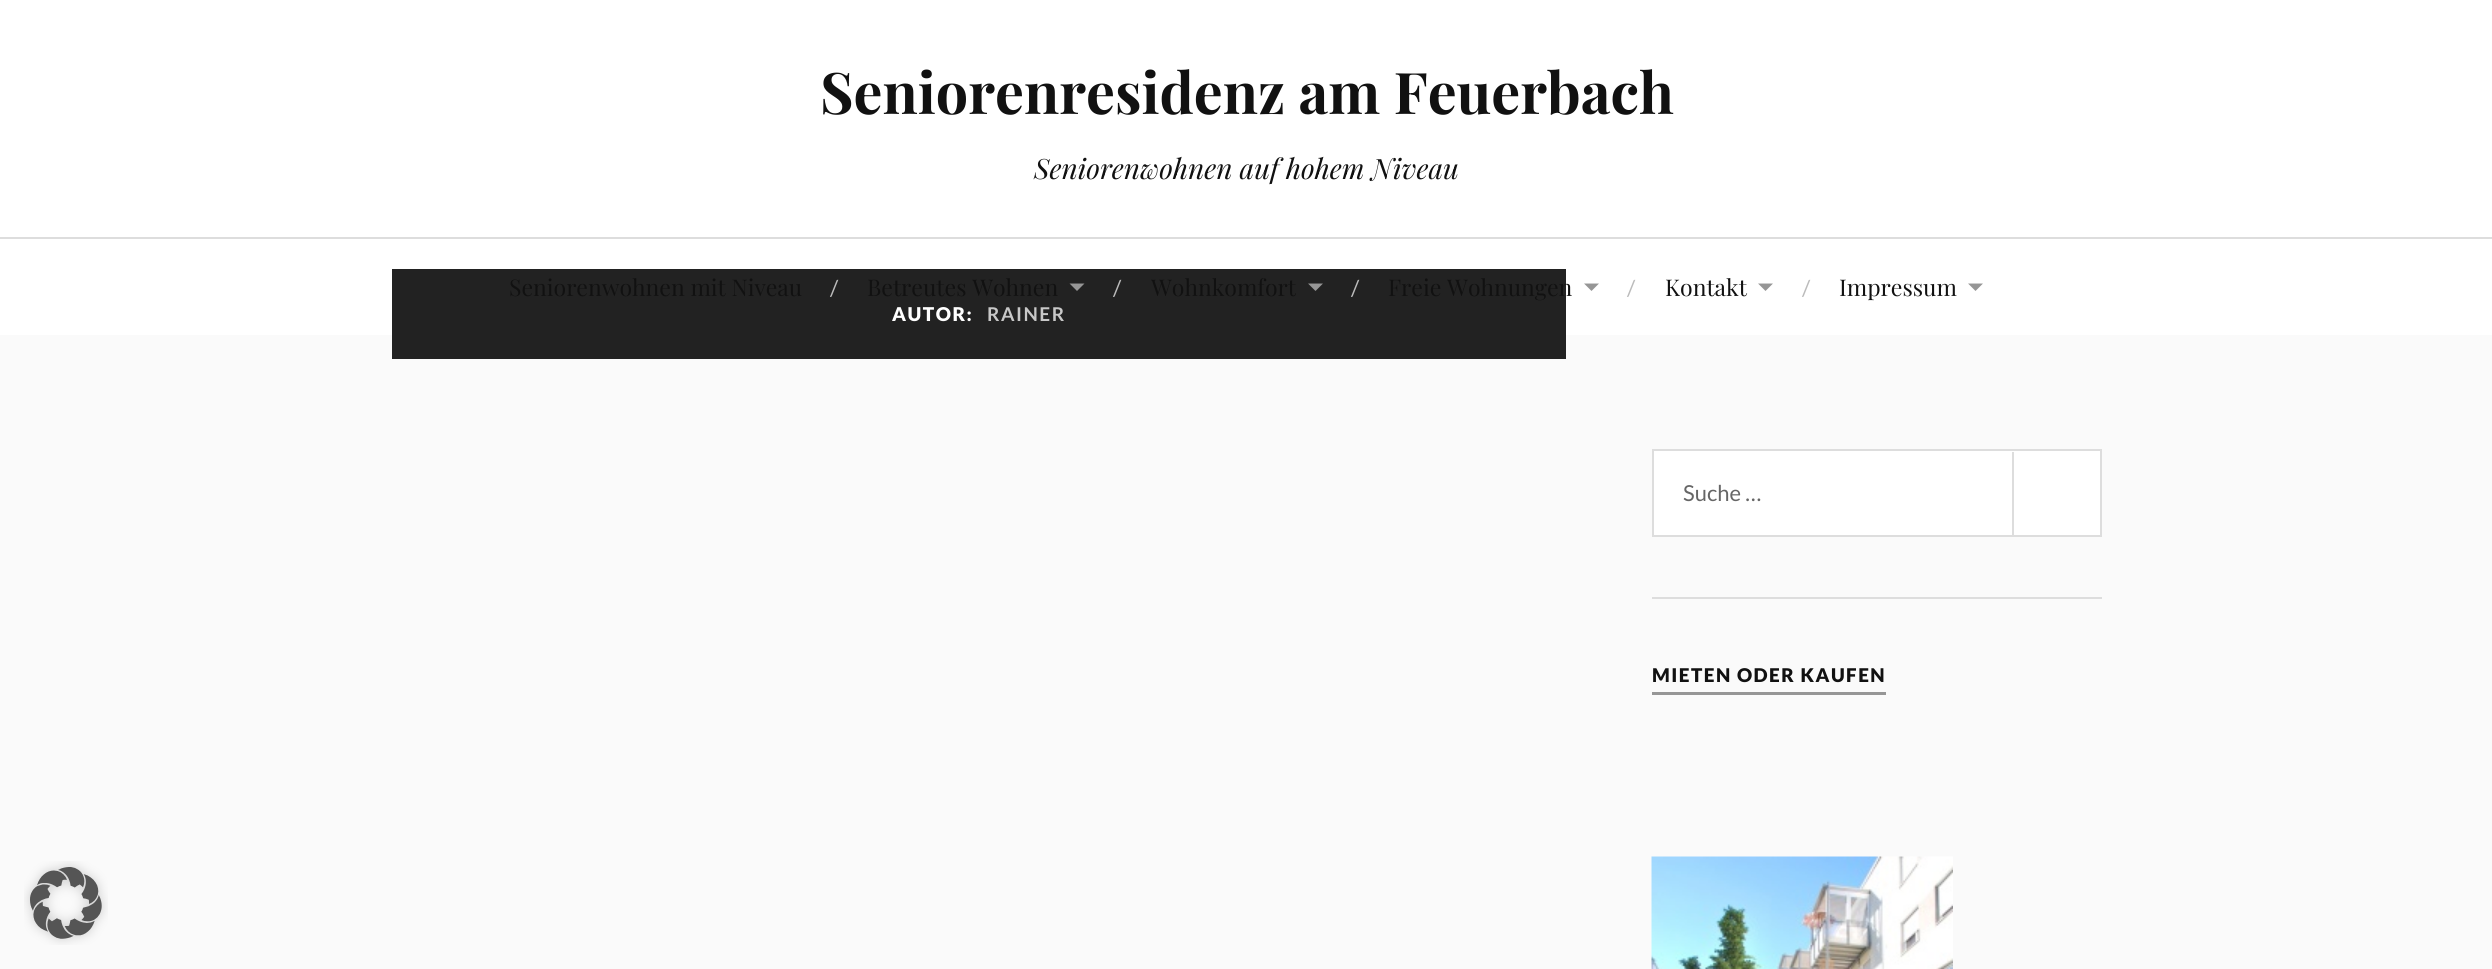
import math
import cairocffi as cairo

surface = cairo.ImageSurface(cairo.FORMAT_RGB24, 2492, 969)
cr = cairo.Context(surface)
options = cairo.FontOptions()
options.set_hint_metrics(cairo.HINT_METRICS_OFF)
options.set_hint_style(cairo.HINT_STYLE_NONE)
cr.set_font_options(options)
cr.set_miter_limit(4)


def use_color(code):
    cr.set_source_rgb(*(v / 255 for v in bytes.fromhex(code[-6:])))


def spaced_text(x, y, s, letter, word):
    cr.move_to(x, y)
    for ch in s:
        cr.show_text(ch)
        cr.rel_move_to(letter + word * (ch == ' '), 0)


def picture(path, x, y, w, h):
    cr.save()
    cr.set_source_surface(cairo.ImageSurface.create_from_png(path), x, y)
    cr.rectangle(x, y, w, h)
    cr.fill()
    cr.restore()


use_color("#fafafa")
cr.paint()
use_color("#ffffff")
cr.rectangle(0, 0, 2492, 237)
cr.fill()
cr.select_font_face("Playfair Display", cairo.FONT_SLANT_NORMAL, cairo.FONT_WEIGHT_BOLD)
cr.set_font_size(57.4)
use_color("#111111")
cr.move_to(820, 114)
cr.show_text("Seniorenresidenz am Feuerbach")
cr.select_font_face("Playfair Display", cairo.FONT_SLANT_ITALIC)
cr.set_font_size(28)
cr.move_to(1034, 179)
cr.show_text("Seniorenwohnen auf hohem Niveau")
use_color("#ffffff")
cr.rectangle(0, 239, 2492, 96)
cr.fill()
use_color("#dddddd")
cr.rectangle(0, 237, 2492, 2)
cr.fill()
use_color("#222222")
cr.rectangle(392, 269, 1174, 90)
cr.fill()
cr.select_font_face("Playfair Display")
cr.set_font_size(23)
use_color("#111111")
cr.move_to(509, 296)
cr.show_text("Seniorenwohnen mit Niveau")
cr.select_font_face("Lato")
cr.set_font_size(22)
use_color("#bbbbbb")
cr.move_to(830, 296)
cr.show_text("/")
cr.select_font_face("Playfair Display")
cr.set_font_size(23)
use_color("#111111")
cr.move_to(867, 296)
cr.show_text("Betreutes Wohnen")
use_color("#969696")
cr.new_path()
cr.move_to(1069.5, 283.5)
cr.line_to(1084.5, 283.5)
cr.line_to(1077, 291)
cr.close_path()
cr.fill()
cr.select_font_face("Lato")
cr.set_font_size(22)
use_color("#bbbbbb")
cr.move_to(1113, 296)
cr.show_text("/")
cr.select_font_face("Playfair Display")
cr.set_font_size(23)
use_color("#111111")
cr.move_to(1151, 296)
cr.show_text("Wohnkomfort")
use_color("#969696")
cr.new_path()
cr.move_to(1308, 283.5)
cr.line_to(1323, 283.5)
cr.line_to(1315.5, 291)
cr.close_path()
cr.fill()
cr.select_font_face("Lato")
cr.set_font_size(22)
use_color("#bbbbbb")
cr.move_to(1351, 296)
cr.show_text("/")
cr.select_font_face("Playfair Display")
cr.set_font_size(23)
use_color("#111111")
cr.move_to(1388, 296)
cr.show_text("Freie Wohnungen")
use_color("#969696")
cr.new_path()
cr.move_to(1584, 283.5)
cr.line_to(1599, 283.5)
cr.line_to(1591.5, 291)
cr.close_path()
cr.fill()
cr.select_font_face("Lato")
cr.set_font_size(22)
use_color("#bbbbbb")
cr.move_to(1627, 296)
cr.show_text("/")
cr.select_font_face("Playfair Display")
cr.set_font_size(23)
use_color("#111111")
cr.move_to(1665, 296)
cr.show_text("Kontakt")
use_color("#969696")
cr.new_path()
cr.move_to(1758, 283.5)
cr.line_to(1773, 283.5)
cr.line_to(1765.5, 291)
cr.close_path()
cr.fill()
cr.select_font_face("Lato")
cr.set_font_size(22)
use_color("#bbbbbb")
cr.move_to(1802, 296)
cr.show_text("/")
cr.select_font_face("Playfair Display")
cr.set_font_size(23)
use_color("#111111")
cr.move_to(1839, 296)
cr.show_text("Impressum")
use_color("#969696")
cr.new_path()
cr.move_to(1968, 283.5)
cr.line_to(1983, 283.5)
cr.line_to(1975.5, 291)
cr.close_path()
cr.fill()
cr.select_font_face("Lato Black")
cr.set_font_size(19)
use_color("#ffffff")
spaced_text(892, 321, "AUTOR:", 1.5, 0)
cr.select_font_face("Lato", cairo.FONT_SLANT_NORMAL, cairo.FONT_WEIGHT_BOLD)
use_color("#c8c8c8")
spaced_text(987, 321, "RAINER", 1.5, 0)
use_color("#ffffff")
cr.rectangle(1653, 450, 448, 86)
cr.fill_preserve()
use_color("#dddddd")
cr.stroke()
cr.select_font_face("Lato")
cr.set_font_size(22)
use_color("#666666")
cr.move_to(1683, 501)
cr.show_text("Suche …")
use_color("#dddddd")
cr.rectangle(2012, 452, 2, 84)
cr.fill()
cr.rectangle(1652, 597, 450, 2)
cr.fill()
use_color("#969696")
cr.rectangle(1652, 692, 234, 3)
cr.fill()
cr.select_font_face("Lato Black")
cr.set_font_size(18.9)
use_color("#111111")
spaced_text(1652, 682, "MIETEN ODER KAUFEN", 1.5, 0)
picture("img1.png", 1651, 856, 302, 113)
picture("img2.png", 24, 861, 84, 84)
surface.write_to_png("result.png")
